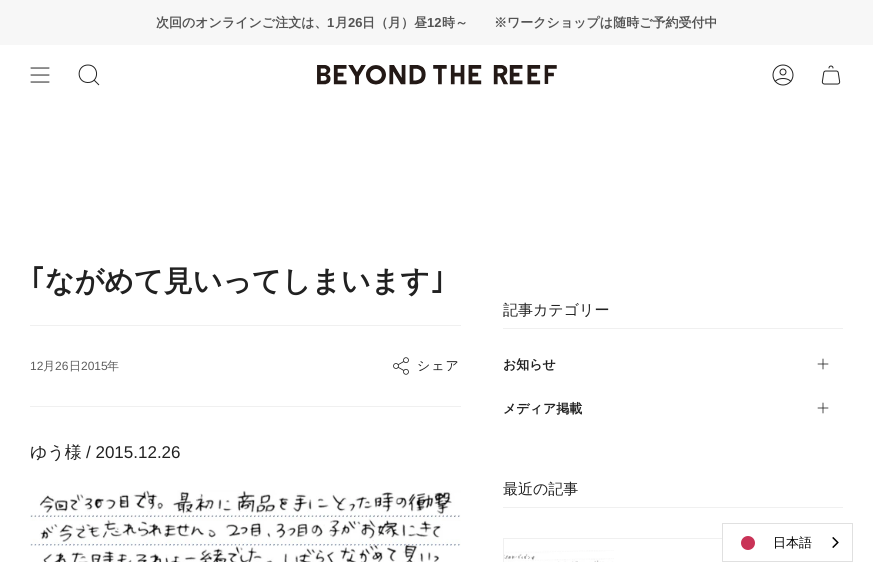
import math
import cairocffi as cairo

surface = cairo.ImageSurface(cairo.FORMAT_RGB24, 873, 562)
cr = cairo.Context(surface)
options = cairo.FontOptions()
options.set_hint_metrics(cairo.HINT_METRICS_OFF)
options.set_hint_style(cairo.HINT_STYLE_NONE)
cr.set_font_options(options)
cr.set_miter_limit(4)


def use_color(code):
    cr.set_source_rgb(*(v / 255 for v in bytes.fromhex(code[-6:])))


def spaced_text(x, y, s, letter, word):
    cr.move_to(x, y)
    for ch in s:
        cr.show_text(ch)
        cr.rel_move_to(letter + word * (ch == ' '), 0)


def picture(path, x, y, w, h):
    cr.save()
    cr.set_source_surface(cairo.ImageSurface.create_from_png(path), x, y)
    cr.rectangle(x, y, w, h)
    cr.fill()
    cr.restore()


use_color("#ffffff")
cr.paint()
use_color("#f7f7f7")
cr.rectangle(0, 0, 873, 45)
cr.fill()
cr.select_font_face("WenQuanYi Zen Hei", cairo.FONT_SLANT_NORMAL, cairo.FONT_WEIGHT_BOLD)
cr.set_font_size(13)
use_color("#545454")
cr.move_to(156, 27)
cr.show_text("次回のオンラインご注文は、")
cr.select_font_face("Liberation Sans", cairo.FONT_SLANT_NORMAL, cairo.FONT_WEIGHT_BOLD)
cr.move_to(327, 27)
cr.show_text("1")
cr.select_font_face("WenQuanYi Zen Hei", cairo.FONT_SLANT_NORMAL, cairo.FONT_WEIGHT_BOLD)
cr.move_to(335, 27)
cr.show_text("月")
cr.select_font_face("Liberation Sans", cairo.FONT_SLANT_NORMAL, cairo.FONT_WEIGHT_BOLD)
cr.move_to(348, 27)
cr.show_text("26")
cr.select_font_face("WenQuanYi Zen Hei", cairo.FONT_SLANT_NORMAL, cairo.FONT_WEIGHT_BOLD)
cr.move_to(362, 27)
cr.show_text("日（月）昼")
cr.select_font_face("Liberation Sans", cairo.FONT_SLANT_NORMAL, cairo.FONT_WEIGHT_BOLD)
cr.move_to(427, 27)
cr.show_text("12")
cr.select_font_face("WenQuanYi Zen Hei", cairo.FONT_SLANT_NORMAL, cairo.FONT_WEIGHT_BOLD)
cr.move_to(442, 27)
cr.show_text("時～　　※ワークショップは随時ご予約受付中")
cr.new_path()
cr.move_to(31, 68)
cr.line_to(49, 68)
cr.move_to(31, 75)
cr.line_to(49, 75)
cr.move_to(31, 82)
cr.line_to(49, 82)
use_color("#212121")
cr.set_line_width(1)
cr.set_line_cap(cairo.LINE_CAP_ROUND)
cr.set_line_join(cairo.LINE_JOIN_ROUND)
cr.stroke()
cr.new_path()
cr.move_to(88, 65)
cr.curve_to(99.5, 65, 99.5, 83, 87.5, 82.5)
cr.curve_to(76, 82, 76.5, 65, 88, 65)
cr.close_path()
cr.move_to(94, 80)
cr.line_to(99, 85)
cr.set_line_cap(cairo.LINE_CAP_BUTT)
cr.set_line_join(cairo.LINE_JOIN_MITER)
cr.stroke()
picture("img1.png", 317, 65, 240, 20)
picture("img2.png", 772, 64, 22, 22)
picture("img3.png", 821, 65, 20, 20)
cr.select_font_face("IPAPGothic", cairo.FONT_SLANT_NORMAL, cairo.FONT_WEIGHT_BOLD)
cr.set_font_size(29)
cr.move_to(30, 291)
cr.show_text("｢")
cr.select_font_face("WenQuanYi Zen Hei", cairo.FONT_SLANT_NORMAL, cairo.FONT_WEIGHT_BOLD)
cr.move_to(45, 291)
cr.show_text("ながめて見いってしまいます")
cr.select_font_face("IPAPGothic", cairo.FONT_SLANT_NORMAL, cairo.FONT_WEIGHT_BOLD)
cr.move_to(430, 291)
cr.show_text("｣")
use_color("#f0f0f0")
cr.rectangle(30, 325, 431, 1)
cr.fill()
cr.select_font_face("Liberation Sans")
cr.set_font_size(12)
use_color("#5d5d5d")
cr.move_to(30, 370)
cr.show_text("12")
cr.select_font_face("WenQuanYi Zen Hei Medium")
cr.move_to(43, 370)
cr.show_text("月")
cr.select_font_face("Liberation Sans")
cr.move_to(55, 370)
cr.show_text("26")
cr.select_font_face("WenQuanYi Zen Hei Medium")
cr.move_to(69, 370)
cr.show_text("日")
cr.select_font_face("Liberation Sans")
cr.move_to(81, 370)
cr.show_text("2015")
cr.select_font_face("WenQuanYi Zen Hei Medium")
cr.move_to(107, 370)
cr.show_text("年")
picture("img4.png", 393, 357, 16, 18)
cr.set_font_size(13)
use_color("#212121")
spaced_text(417, 370, "シェア", 1, 0)
use_color("#f0f0f0")
cr.rectangle(30, 406, 431, 1)
cr.fill()
cr.set_font_size(17)
use_color("#212121")
cr.move_to(30, 458)
cr.show_text("ゆう様")
cr.select_font_face("Liberation Sans")
cr.move_to(86, 458)
cr.show_text("/ 2015.12.26")
picture("img5.png", 30, 490, 431, 72)
use_color("#f0f0f0")
cr.rectangle(503, 328, 340, 1)
cr.fill()
cr.select_font_face("WenQuanYi Zen Hei Medium")
cr.set_font_size(15)
use_color("#212121")
cr.move_to(503, 315)
cr.show_text("記事カテゴリー")
cr.select_font_face("WenQuanYi Zen Hei", cairo.FONT_SLANT_NORMAL, cairo.FONT_WEIGHT_BOLD)
cr.set_font_size(13)
cr.move_to(503, 369)
cr.show_text("お知らせ")
picture("img6.png", 817, 358, 12, 12)
cr.move_to(503, 413)
cr.show_text("メディア掲載")
picture("img6.png", 817, 402, 12, 12)
use_color("#f0f0f0")
cr.rectangle(503, 507, 340, 1)
cr.fill()
cr.select_font_face("WenQuanYi Zen Hei Medium")
cr.set_font_size(15)
use_color("#212121")
cr.move_to(503, 494)
cr.show_text("最近の記事")
cr.rectangle(503.5, 538.5, 339, 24)
use_color("#f0f0f0")
cr.stroke()
picture("img7.png", 504, 550, 110, 12)
use_color("#ffffff")
cr.rectangle(723, 538, 120, 23)
cr.fill()
cr.rectangle(722.5, 523.5, 130, 38)
use_color("#e0e0e0")
cr.stroke()
use_color("#bc002d")
cr.arc(748, 543, 7, 0, 2 * math.pi)
cr.fill()
cr.set_source_rgba(1, 1, 1, 0.2)
cr.rectangle(741, 536, 14, 14)
cr.fill()
cr.set_font_size(13)
use_color("#000000")
cr.move_to(773, 547)
cr.show_text("日本語")
picture("img8.png", 832, 537, 7, 11)
surface.write_to_png("result.png")
